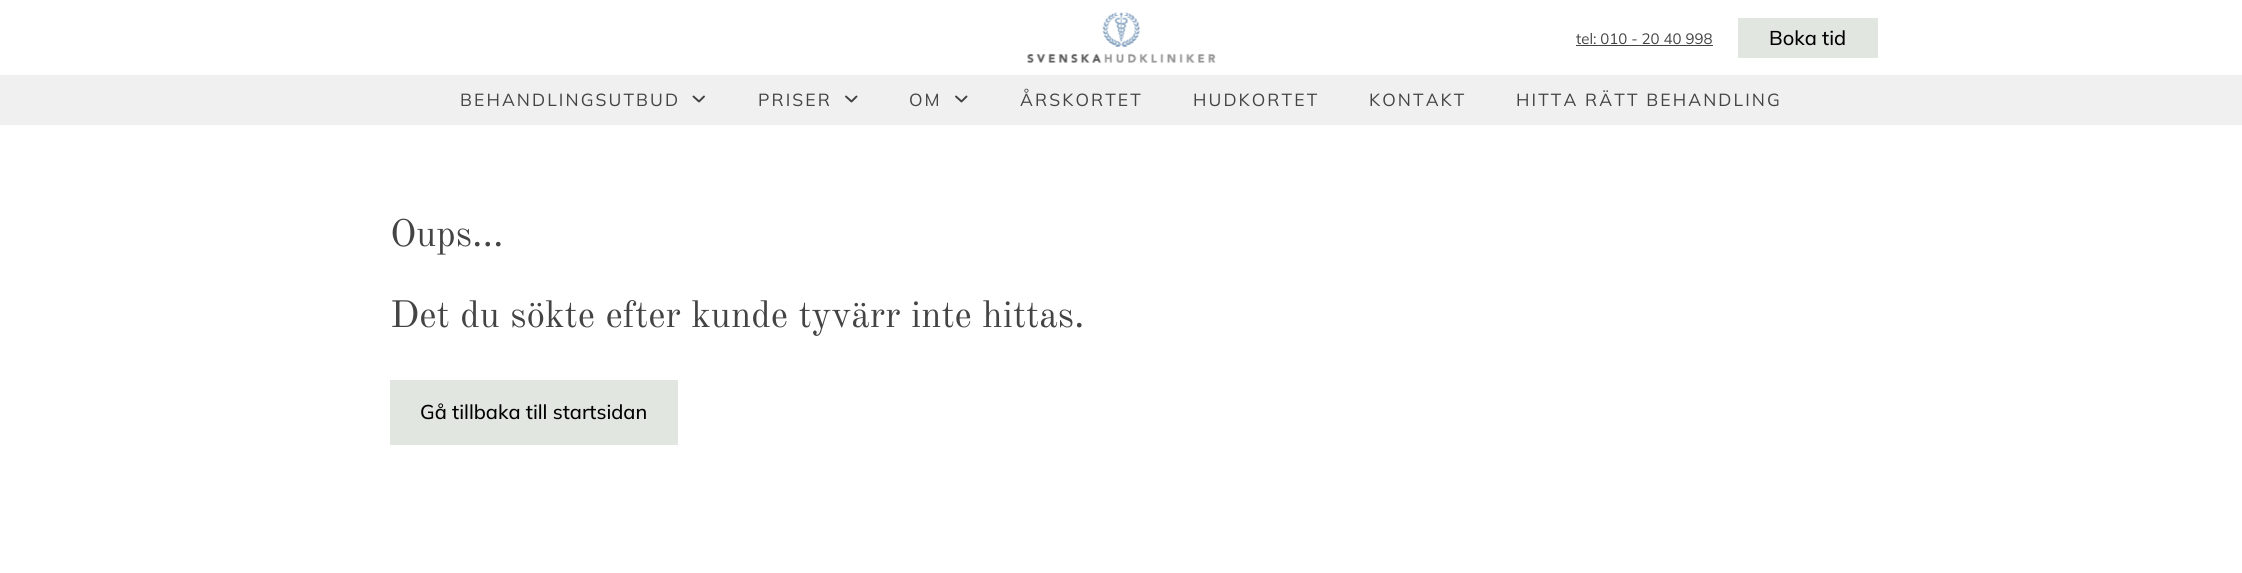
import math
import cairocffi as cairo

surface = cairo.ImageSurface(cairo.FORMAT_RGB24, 2242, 573)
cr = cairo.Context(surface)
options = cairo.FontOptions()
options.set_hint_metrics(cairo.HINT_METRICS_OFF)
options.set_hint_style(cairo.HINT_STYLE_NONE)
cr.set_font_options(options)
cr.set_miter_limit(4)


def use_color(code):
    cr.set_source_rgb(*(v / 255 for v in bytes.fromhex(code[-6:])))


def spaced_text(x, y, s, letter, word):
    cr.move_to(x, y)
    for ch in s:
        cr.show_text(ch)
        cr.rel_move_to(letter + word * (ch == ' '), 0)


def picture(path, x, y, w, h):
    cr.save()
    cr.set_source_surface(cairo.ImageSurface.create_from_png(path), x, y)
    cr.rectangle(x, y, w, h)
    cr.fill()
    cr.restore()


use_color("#ffffff")
cr.paint()
picture("img1.png", 1027, 12, 189, 51)
cr.select_font_face("Mulish")
cr.set_font_size(15)
use_color("#444444")
cr.move_to(1576, 44)
cr.show_text("tel: 010 - 20 40 998")
cr.rectangle(1576, 45, 137, 1)
cr.fill()
use_color("#e1e6e1")
cr.rectangle(1738, 18, 140, 40)
cr.fill()
cr.select_font_face("Mulish Medium")
cr.set_font_size(20)
use_color("#000000")
cr.move_to(1769, 45)
cr.show_text("Boka tid")
use_color("#f0f0f0")
cr.rectangle(0, 75, 2242, 50)
cr.fill()
cr.select_font_face("Mulish")
cr.set_font_size(17.5)
use_color("#444444")
spaced_text(460, 106, "BEHANDLINGSUTBUD", 2.1, 0)
cr.new_path()
cr.move_to(693.5, 96.5)
cr.line_to(699, 101.5)
cr.line_to(704, 96.5)
use_color("#3f3f3f")
cr.set_line_width(1.9)
cr.set_line_cap(cairo.LINE_CAP_ROUND)
cr.set_line_join(cairo.LINE_JOIN_ROUND)
cr.stroke()
use_color("#444444")
spaced_text(758, 106, "PRISER", 2.1, 0)
cr.new_path()
cr.move_to(846, 96.5)
cr.line_to(851.5, 101.5)
cr.line_to(856.5, 96.5)
use_color("#3f3f3f")
cr.stroke()
use_color("#444444")
spaced_text(909, 106, "OM", 2.1, 0)
cr.new_path()
cr.move_to(956, 96.5)
cr.line_to(961.5, 101.5)
cr.line_to(966.5, 96.5)
use_color("#3f3f3f")
cr.stroke()
use_color("#444444")
spaced_text(1020, 106, "ÅRSKORTET", 2.1, 0)
spaced_text(1193, 106, "HUDKORTET", 2.1, 0)
spaced_text(1369, 106, "KONTAKT", 2.1, 0)
spaced_text(1516, 106, "HITTA RÄTT BEHANDLING", 2.1, 0)
cr.select_font_face("Old Standard TT")
cr.set_font_size(37.5)
cr.move_to(390, 246)
cr.show_text("Oups...")
cr.move_to(390, 327)
cr.show_text("Det du sökte efter kunde tyvärr inte hittas.")
use_color("#e1e6e1")
cr.rectangle(390, 380, 288, 65)
cr.fill()
cr.select_font_face("Mulish Medium")
cr.set_font_size(20)
use_color("#000000")
cr.move_to(420, 419)
cr.show_text("Gå tillbaka till startsidan")
surface.write_to_png("result.png")
